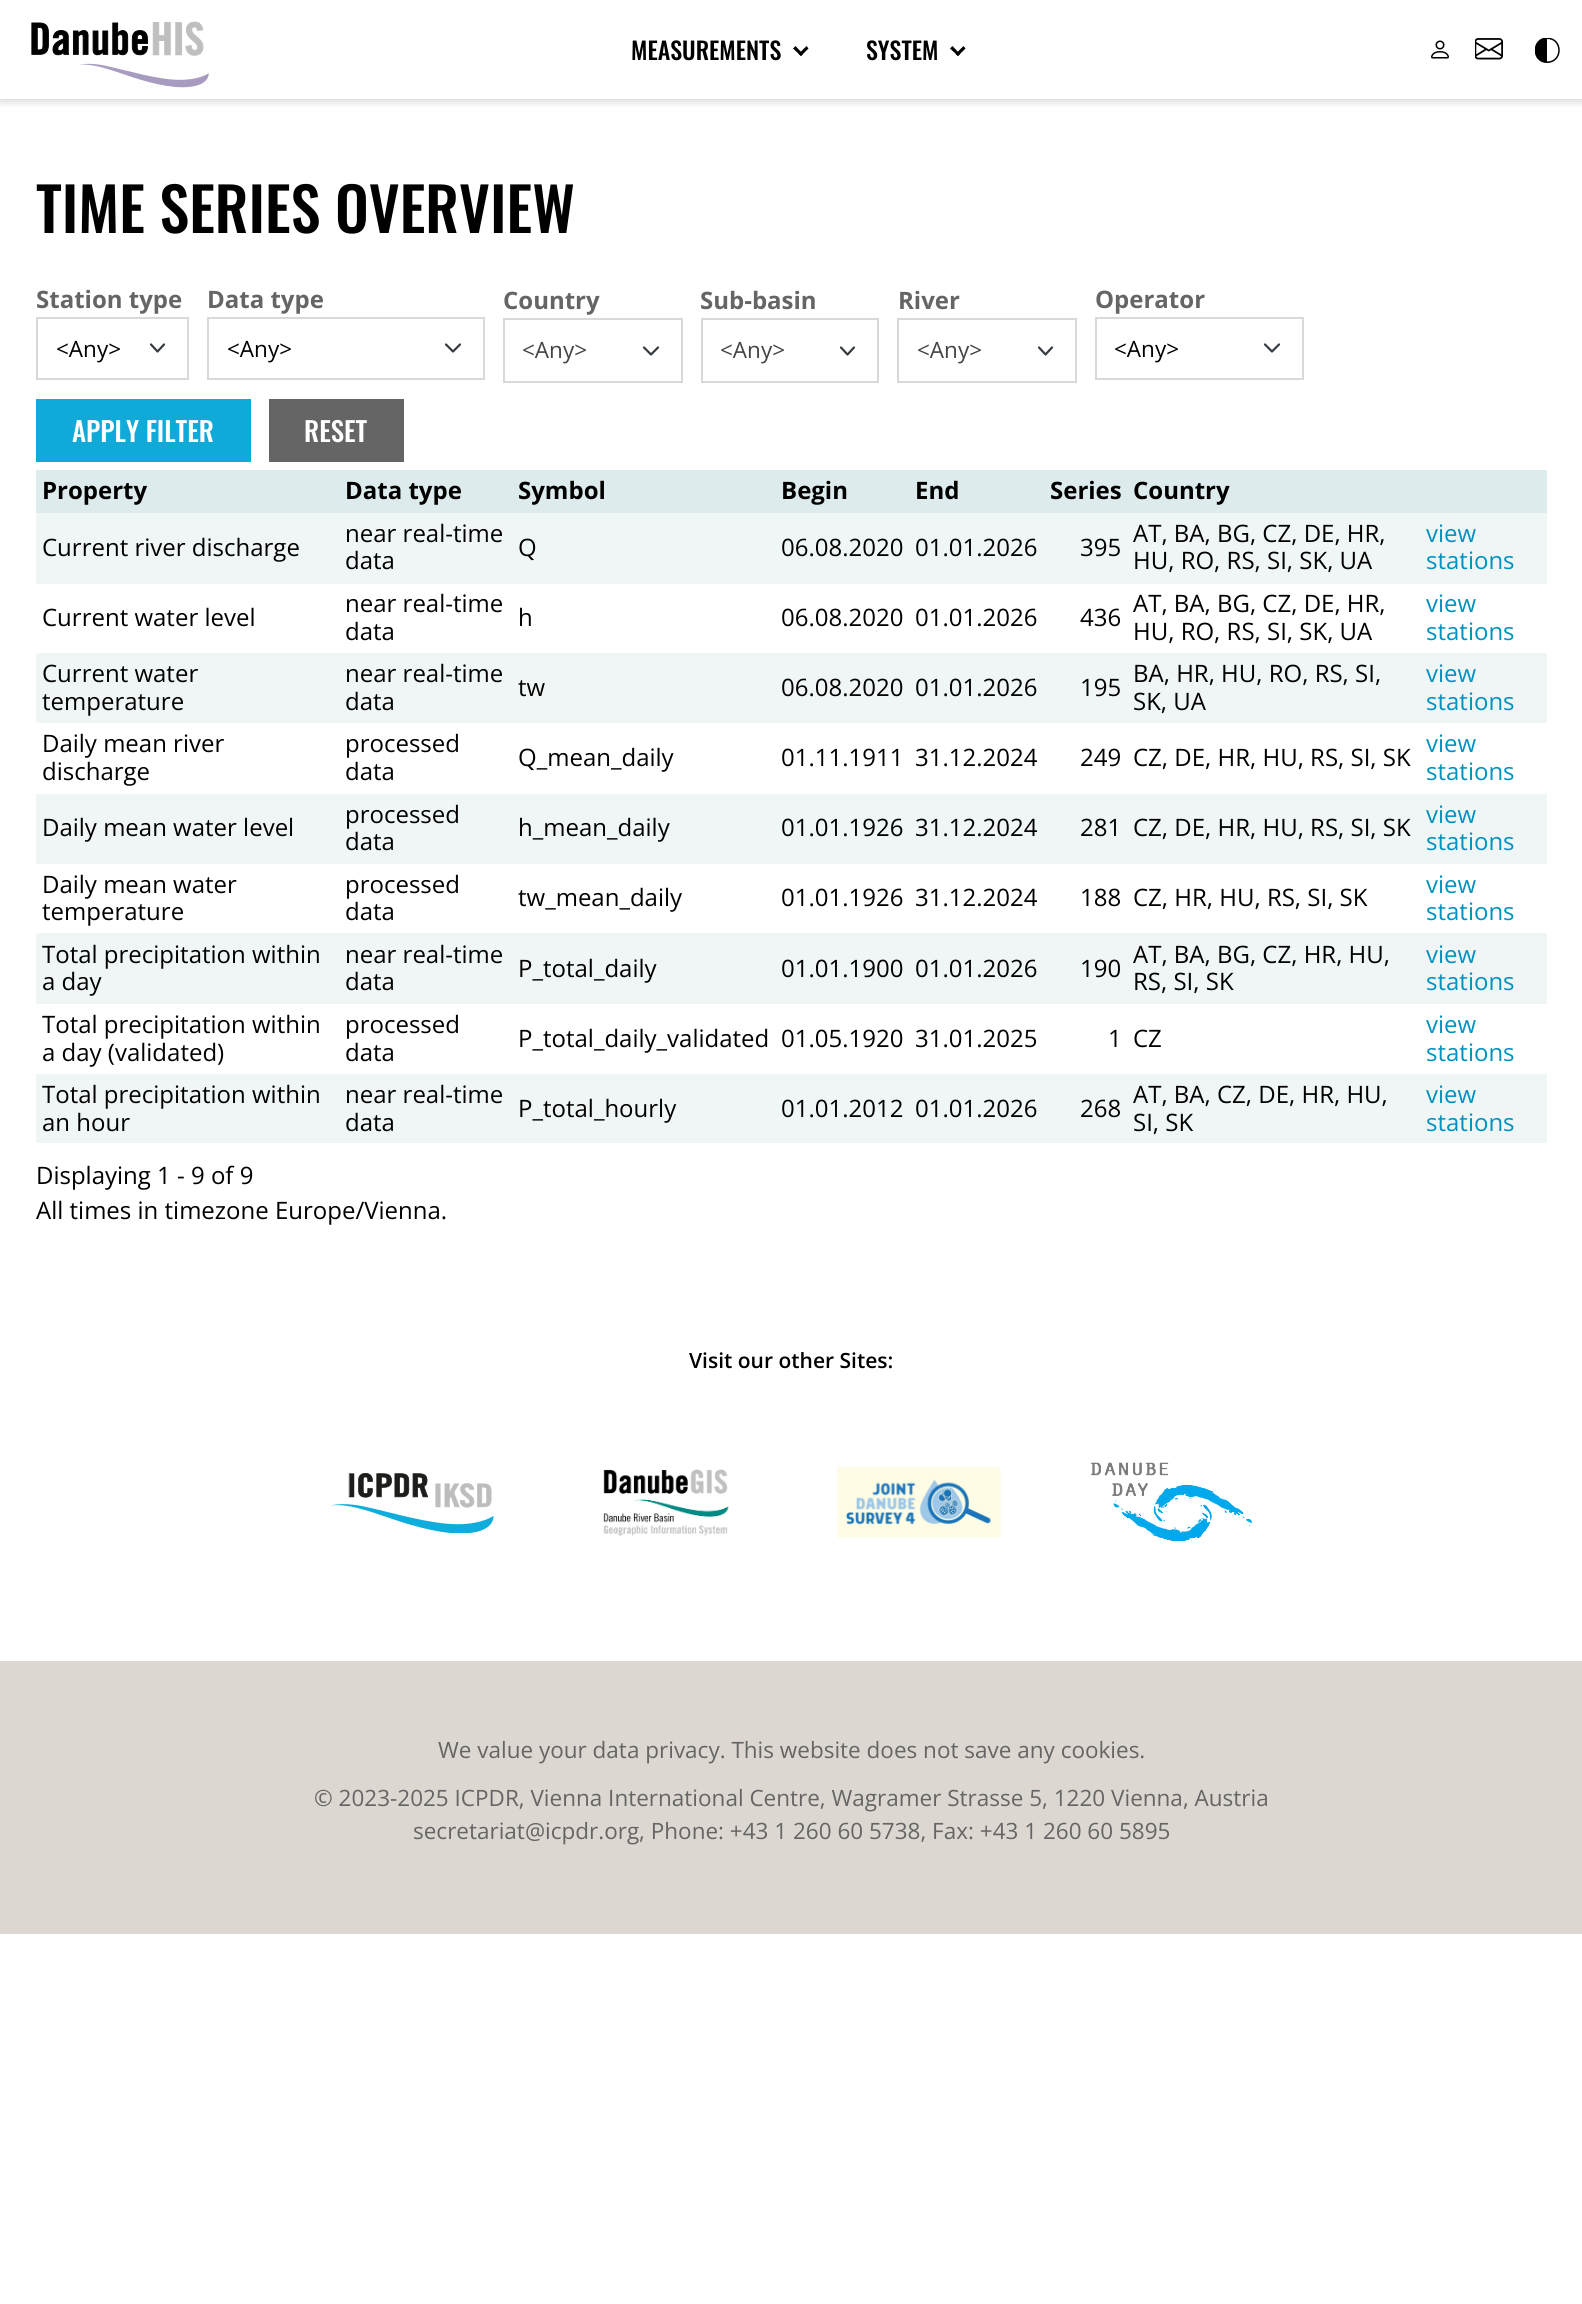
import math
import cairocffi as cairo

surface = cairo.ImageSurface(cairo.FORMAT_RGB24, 1582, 2304)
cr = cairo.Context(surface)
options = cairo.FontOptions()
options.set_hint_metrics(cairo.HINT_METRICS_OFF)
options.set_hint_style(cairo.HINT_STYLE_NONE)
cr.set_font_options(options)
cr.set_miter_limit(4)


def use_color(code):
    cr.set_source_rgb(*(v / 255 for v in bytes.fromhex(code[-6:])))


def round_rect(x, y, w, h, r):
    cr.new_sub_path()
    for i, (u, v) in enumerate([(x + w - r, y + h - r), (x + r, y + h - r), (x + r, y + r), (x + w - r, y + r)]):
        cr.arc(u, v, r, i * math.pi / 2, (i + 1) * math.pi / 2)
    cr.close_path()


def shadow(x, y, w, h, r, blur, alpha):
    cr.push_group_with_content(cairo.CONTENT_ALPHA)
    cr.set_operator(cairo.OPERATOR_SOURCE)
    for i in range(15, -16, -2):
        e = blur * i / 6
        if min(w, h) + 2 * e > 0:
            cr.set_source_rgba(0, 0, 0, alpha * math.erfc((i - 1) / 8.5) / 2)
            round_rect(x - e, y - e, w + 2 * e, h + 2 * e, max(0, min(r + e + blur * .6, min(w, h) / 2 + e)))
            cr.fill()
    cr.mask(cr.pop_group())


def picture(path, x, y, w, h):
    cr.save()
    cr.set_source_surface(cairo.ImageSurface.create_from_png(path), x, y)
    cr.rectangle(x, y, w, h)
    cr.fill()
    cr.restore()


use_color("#ffffff")
cr.paint()
cr.save()
cr.rectangle(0, 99, 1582, 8)
cr.clip()
use_color("#000000")
shadow(0, 0, 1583, 99, 0, 6, 0.24)
cr.restore()
picture("img1.png", 31, 21, 178, 67)
cr.select_font_face("Oswald Medium")
cr.set_font_size(24)
use_color("#000000")
cr.move_to(631, 60)
cr.show_text("MEASUREMENTS")
cr.new_path()
cr.move_to(808.5, 48.5)
cr.line_to(801, 56)
cr.line_to(798.5, 54)
cr.line_to(806.5, 46)
cr.close_path()
cr.fill()
cr.new_path()
cr.move_to(803, 54)
cr.line_to(801, 56)
cr.line_to(793, 48.5)
cr.line_to(795.5, 46)
cr.close_path()
cr.fill()
cr.move_to(866, 60)
cr.show_text("SYSTEM")
cr.new_path()
cr.move_to(965.5, 48.5)
cr.line_to(958, 56)
cr.line_to(955.5, 54)
cr.line_to(963.5, 46)
cr.close_path()
cr.fill()
cr.new_path()
cr.move_to(960, 54)
cr.line_to(958, 56)
cr.line_to(950, 48.5)
cr.line_to(952.5, 46)
cr.close_path()
cr.fill()
picture("img2.png", 1431, 40, 18, 19)
picture("img3.png", 1475, 38, 28, 22)
cr.save()
cr.rectangle(1535, 38, 25, 25)
cr.clip()
cr.new_path()
cr.move_to(1547, 61.5)
cr.curve_to(1562, 61.5, 1562, 39, 1547, 39)
cr.close_path()
cr.move_to(1547, 63)
cr.curve_to(1530.5, 63, 1530.5, 37.5, 1547, 37.5)
cr.curve_to(1564, 37.5, 1564, 63, 1547, 63)
cr.close_path()
cr.fill()
cr.restore()
cr.set_font_size(60)
cr.move_to(36, 233)
cr.show_text("TIME SERIES OVERVIEW")
cr.select_font_face("Open Sans", cairo.FONT_SLANT_NORMAL, cairo.FONT_WEIGHT_BOLD)
cr.set_font_size(24)
use_color("#656565")
cr.move_to(36, 308)
cr.show_text("Station type")
cr.new_path()
cr.move_to(151, 344.5)
cr.line_to(157.5, 351.5)
cr.line_to(164, 344.5)
use_color("#343a40")
cr.set_line_width(2.2)
cr.set_line_cap(cairo.LINE_CAP_ROUND)
cr.set_line_join(cairo.LINE_JOIN_ROUND)
cr.stroke()
cr.rectangle(37, 318, 151, 61)
use_color("#d9d9d9")
cr.set_line_width(2)
cr.set_line_cap(cairo.LINE_CAP_BUTT)
cr.set_line_join(cairo.LINE_JOIN_MITER)
cr.stroke()
cr.select_font_face("Open Sans")
cr.set_font_size(22.5)
use_color("#000000")
cr.move_to(56, 357)
cr.show_text("<Any>")
cr.select_font_face("Open Sans", cairo.FONT_SLANT_NORMAL, cairo.FONT_WEIGHT_BOLD)
cr.set_font_size(24)
use_color("#656565")
cr.move_to(207, 308)
cr.show_text("Data type")
cr.new_path()
cr.move_to(446, 344.5)
cr.line_to(453, 351.5)
cr.line_to(460, 344.5)
use_color("#343a40")
cr.set_line_width(2.2)
cr.set_line_cap(cairo.LINE_CAP_ROUND)
cr.set_line_join(cairo.LINE_JOIN_ROUND)
cr.stroke()
cr.rectangle(208, 318, 276, 61)
use_color("#d9d9d9")
cr.set_line_width(2)
cr.set_line_cap(cairo.LINE_CAP_BUTT)
cr.set_line_join(cairo.LINE_JOIN_MITER)
cr.stroke()
cr.select_font_face("Open Sans")
cr.set_font_size(22.5)
use_color("#000000")
cr.move_to(227, 357)
cr.show_text("<Any>")
cr.select_font_face("Open Sans", cairo.FONT_SLANT_NORMAL, cairo.FONT_WEIGHT_BOLD)
cr.set_font_size(24)
use_color("#656565")
cr.move_to(503, 309)
cr.show_text("Country")
cr.new_path()
cr.move_to(644, 347.5)
cr.line_to(651, 354.5)
cr.line_to(658, 347.5)
use_color("#343a40")
cr.set_line_width(2.2)
cr.set_line_cap(cairo.LINE_CAP_ROUND)
cr.set_line_join(cairo.LINE_JOIN_ROUND)
cr.stroke()
cr.rectangle(504, 319, 178, 63)
use_color("#d9d9d9")
cr.set_line_width(2)
cr.set_line_cap(cairo.LINE_CAP_BUTT)
cr.set_line_join(cairo.LINE_JOIN_MITER)
cr.stroke()
cr.select_font_face("Open Sans")
cr.set_font_size(22.5)
use_color("#444444")
cr.move_to(522, 358)
cr.show_text("<Any>")
cr.select_font_face("Open Sans", cairo.FONT_SLANT_NORMAL, cairo.FONT_WEIGHT_BOLD)
cr.set_font_size(24)
use_color("#656565")
cr.move_to(700, 309)
cr.show_text("Sub-basin")
cr.new_path()
cr.move_to(841, 347.5)
cr.line_to(847.5, 354.5)
cr.line_to(854, 347.5)
use_color("#343a40")
cr.set_line_width(2.2)
cr.set_line_cap(cairo.LINE_CAP_ROUND)
cr.set_line_join(cairo.LINE_JOIN_ROUND)
cr.stroke()
cr.rectangle(702, 319, 176, 63)
use_color("#d9d9d9")
cr.set_line_width(2)
cr.set_line_cap(cairo.LINE_CAP_BUTT)
cr.set_line_join(cairo.LINE_JOIN_MITER)
cr.stroke()
cr.select_font_face("Open Sans")
cr.set_font_size(22.5)
use_color("#444444")
cr.move_to(720, 358)
cr.show_text("<Any>")
cr.select_font_face("Open Sans", cairo.FONT_SLANT_NORMAL, cairo.FONT_WEIGHT_BOLD)
cr.set_font_size(24)
use_color("#656565")
cr.move_to(898, 309)
cr.show_text("River")
cr.new_path()
cr.move_to(1039, 347.5)
cr.line_to(1045.5, 354.5)
cr.line_to(1052, 347.5)
use_color("#343a40")
cr.set_line_width(2.2)
cr.set_line_cap(cairo.LINE_CAP_ROUND)
cr.set_line_join(cairo.LINE_JOIN_ROUND)
cr.stroke()
cr.rectangle(898, 319, 178, 63)
use_color("#d9d9d9")
cr.set_line_width(2)
cr.set_line_cap(cairo.LINE_CAP_BUTT)
cr.set_line_join(cairo.LINE_JOIN_MITER)
cr.stroke()
cr.select_font_face("Open Sans")
cr.set_font_size(22.5)
use_color("#444444")
cr.move_to(917, 358)
cr.show_text("<Any>")
cr.select_font_face("Open Sans", cairo.FONT_SLANT_NORMAL, cairo.FONT_WEIGHT_BOLD)
cr.set_font_size(24)
use_color("#656565")
cr.move_to(1095, 308)
cr.show_text("Operator")
cr.new_path()
cr.move_to(1265, 344.5)
cr.line_to(1272, 351.5)
cr.line_to(1279, 344.5)
use_color("#343a40")
cr.set_line_width(2.2)
cr.set_line_cap(cairo.LINE_CAP_ROUND)
cr.set_line_join(cairo.LINE_JOIN_ROUND)
cr.stroke()
cr.rectangle(1096, 318, 207, 61)
use_color("#d9d9d9")
cr.set_line_width(2)
cr.set_line_cap(cairo.LINE_CAP_BUTT)
cr.set_line_join(cairo.LINE_JOIN_MITER)
cr.stroke()
cr.select_font_face("Open Sans")
cr.set_font_size(22.5)
use_color("#000000")
cr.move_to(1114, 357)
cr.show_text("<Any>")
use_color("#0faad8")
cr.rectangle(36, 399, 215, 63)
cr.fill()
cr.select_font_face("Oswald Medium")
cr.set_font_size(27)
use_color("#ffffff")
cr.move_to(72, 442)
cr.show_text("APPLY FILTER")
use_color("#656565")
cr.rectangle(269, 399, 135, 63)
cr.fill()
use_color("#ffffff")
cr.move_to(304, 442)
cr.show_text("RESET")
use_color("#deebec")
cr.rectangle(36, 470, 1511, 43)
cr.fill()
cr.select_font_face("Open Sans", cairo.FONT_SLANT_NORMAL, cairo.FONT_WEIGHT_BOLD)
cr.set_font_size(24)
use_color("#000000")
cr.move_to(42, 499)
cr.show_text("Property")
cr.move_to(345, 499)
cr.show_text("Data type")
cr.move_to(518, 499)
cr.show_text("Symbol")
cr.move_to(781, 499)
cr.show_text("Begin")
cr.move_to(915, 499)
cr.show_text("End")
cr.move_to(1050, 499)
cr.show_text("Series")
cr.move_to(1133, 499)
cr.show_text("Country")
use_color("#f0f5f6")
cr.rectangle(36, 513, 1511, 71)
cr.fill()
cr.select_font_face("Open Sans")
use_color("#000000")
cr.move_to(42, 556)
cr.show_text("Current river discharge")
cr.move_to(345, 542)
cr.show_text("near real-time")
cr.move_to(345, 569)
cr.show_text("data")
cr.move_to(518, 556)
cr.show_text("Q")
cr.move_to(781, 556)
cr.show_text("06.08.2020")
cr.move_to(915, 556)
cr.show_text("01.01.2026")
cr.move_to(1080, 556)
cr.show_text("395")
cr.move_to(1133, 542)
cr.show_text("AT, BA, BG, CZ, DE, HR,")
cr.move_to(1133, 569)
cr.show_text("HU, RO, RS, SI, SK, UA")
use_color("#0092bf")
cr.move_to(1426, 542)
cr.show_text("view")
cr.move_to(1426, 569)
cr.show_text("stations")
use_color("#000000")
cr.move_to(42, 626)
cr.show_text("Current water level")
cr.move_to(345, 612)
cr.show_text("near real-time")
cr.move_to(345, 640)
cr.show_text("data")
cr.move_to(518, 626)
cr.show_text("h")
cr.move_to(781, 626)
cr.show_text("06.08.2020")
cr.move_to(915, 626)
cr.show_text("01.01.2026")
cr.move_to(1080, 626)
cr.show_text("436")
cr.move_to(1133, 612)
cr.show_text("AT, BA, BG, CZ, DE, HR,")
cr.move_to(1133, 640)
cr.show_text("HU, RO, RS, SI, SK, UA")
use_color("#0092bf")
cr.move_to(1426, 612)
cr.show_text("view")
cr.move_to(1426, 640)
cr.show_text("stations")
use_color("#f0f5f6")
cr.rectangle(36, 653, 1511, 70)
cr.fill()
use_color("#000000")
cr.move_to(42, 682)
cr.show_text("Current water")
cr.move_to(42, 710)
cr.show_text("temperature")
cr.move_to(345, 682)
cr.show_text("near real-time")
cr.move_to(345, 710)
cr.show_text("data")
cr.move_to(518, 696)
cr.show_text("tw")
cr.move_to(781, 696)
cr.show_text("06.08.2020")
cr.move_to(915, 696)
cr.show_text("01.01.2026")
cr.move_to(1080, 696)
cr.show_text("195")
cr.move_to(1133, 682)
cr.show_text("BA, HR, HU, RO, RS, SI,")
cr.move_to(1133, 710)
cr.show_text("SK, UA")
use_color("#0092bf")
cr.move_to(1426, 682)
cr.show_text("view")
cr.move_to(1426, 710)
cr.show_text("stations")
use_color("#000000")
cr.move_to(42, 752)
cr.show_text("Daily mean river")
cr.move_to(42, 780)
cr.show_text("discharge")
cr.move_to(345, 752)
cr.show_text("processed")
cr.move_to(345, 780)
cr.show_text("data")
cr.move_to(518, 766)
cr.show_text("Q_mean_daily")
cr.move_to(781, 766)
cr.show_text("01.11.1911")
cr.move_to(915, 766)
cr.show_text("31.12.2024")
cr.move_to(1080, 766)
cr.show_text("249")
cr.move_to(1133, 766)
cr.show_text("CZ, DE, HR, HU, RS, SI, SK")
use_color("#0092bf")
cr.move_to(1426, 752)
cr.show_text("view")
cr.move_to(1426, 780)
cr.show_text("stations")
use_color("#f0f5f6")
cr.rectangle(36, 794, 1511, 70)
cr.fill()
use_color("#000000")
cr.move_to(42, 836)
cr.show_text("Daily mean water level")
cr.move_to(345, 823)
cr.show_text("processed")
cr.move_to(345, 850)
cr.show_text("data")
cr.move_to(518, 836)
cr.show_text("h_mean_daily")
cr.move_to(781, 836)
cr.show_text("01.01.1926")
cr.move_to(915, 836)
cr.show_text("31.12.2024")
cr.move_to(1080, 836)
cr.show_text("281")
cr.move_to(1133, 836)
cr.show_text("CZ, DE, HR, HU, RS, SI, SK")
use_color("#0092bf")
cr.move_to(1426, 823)
cr.show_text("view")
cr.move_to(1426, 850)
cr.show_text("stations")
use_color("#000000")
cr.move_to(42, 893)
cr.show_text("Daily mean water")
cr.move_to(42, 920)
cr.show_text("temperature")
cr.move_to(345, 893)
cr.show_text("processed")
cr.move_to(345, 920)
cr.show_text("data")
cr.move_to(518, 906)
cr.show_text("tw_mean_daily")
cr.move_to(781, 906)
cr.show_text("01.01.1926")
cr.move_to(915, 906)
cr.show_text("31.12.2024")
cr.move_to(1080, 906)
cr.show_text("188")
cr.move_to(1133, 906)
cr.show_text("CZ, HR, HU, RS, SI, SK")
use_color("#0092bf")
cr.move_to(1426, 893)
cr.show_text("view")
cr.move_to(1426, 920)
cr.show_text("stations")
use_color("#f0f5f6")
cr.rectangle(36, 933, 1511, 71)
cr.fill()
use_color("#000000")
cr.move_to(42, 963)
cr.show_text("Total precipitation within")
cr.move_to(42, 990)
cr.show_text("a day")
cr.move_to(345, 963)
cr.show_text("near real-time")
cr.move_to(345, 990)
cr.show_text("data")
cr.move_to(518, 977)
cr.show_text("P_total_daily")
cr.move_to(781, 977)
cr.show_text("01.01.1900")
cr.move_to(915, 977)
cr.show_text("01.01.2026")
cr.move_to(1080, 977)
cr.show_text("190")
cr.move_to(1133, 963)
cr.show_text("AT, BA, BG, CZ, HR, HU,")
cr.move_to(1133, 990)
cr.show_text("RS, SI, SK")
use_color("#0092bf")
cr.move_to(1426, 963)
cr.show_text("view")
cr.move_to(1426, 990)
cr.show_text("stations")
use_color("#000000")
cr.move_to(42, 1033)
cr.show_text("Total precipitation within")
cr.move_to(42, 1061)
cr.show_text("a day (validated)")
cr.move_to(345, 1033)
cr.show_text("processed")
cr.move_to(345, 1061)
cr.show_text("data")
cr.move_to(518, 1047)
cr.show_text("P_total_daily_validated")
cr.move_to(781, 1047)
cr.show_text("01.05.1920")
cr.move_to(915, 1047)
cr.show_text("31.01.2025")
cr.move_to(1108, 1047)
cr.show_text("1")
cr.move_to(1133, 1047)
cr.show_text("CZ")
use_color("#0092bf")
cr.move_to(1426, 1033)
cr.show_text("view")
cr.move_to(1426, 1061)
cr.show_text("stations")
use_color("#f0f5f6")
cr.rectangle(36, 1074, 1511, 69)
cr.fill()
use_color("#000000")
cr.move_to(42, 1103)
cr.show_text("Total precipitation within")
cr.move_to(42, 1131)
cr.show_text("an hour")
cr.move_to(345, 1103)
cr.show_text("near real-time")
cr.move_to(345, 1131)
cr.show_text("data")
cr.move_to(518, 1117)
cr.show_text("P_total_hourly")
cr.move_to(781, 1117)
cr.show_text("01.01.2012")
cr.move_to(915, 1117)
cr.show_text("01.01.2026")
cr.move_to(1080, 1117)
cr.show_text("268")
cr.move_to(1133, 1103)
cr.show_text("AT, BA, CZ, DE, HR, HU,")
cr.move_to(1133, 1131)
cr.show_text("SI, SK")
use_color("#0092bf")
cr.move_to(1426, 1103)
cr.show_text("view")
cr.move_to(1426, 1131)
cr.show_text("stations")
use_color("#000000")
cr.move_to(36, 1184)
cr.show_text("Displaying 1 - 9 of 9")
cr.move_to(36, 1219)
cr.show_text("All times in timezone Europe/Vienna.")
cr.select_font_face("Open Sans SemiBold")
cr.set_font_size(21)
cr.move_to(689, 1368)
cr.show_text("Visit our other Sites:")
picture("img4.png", 330, 1473, 164, 60)
picture("img5.png", 603, 1469, 126, 67)
picture("img6.png", 837, 1467, 164, 71)
picture("img7.png", 1091, 1462, 161, 80)
use_color("#dcd7d0")
cr.rectangle(0, 1661, 1582, 273)
cr.fill()
cr.select_font_face("Open Sans")
cr.set_font_size(22.5)
use_color("#656565")
cr.move_to(438, 1758)
cr.show_text("We value your data privacy. This website does not save any cookies.")
cr.move_to(314, 1806)
cr.show_text("© 2023-2025 ICPDR, Vienna International Centre, Wagramer Strasse 5, 1220 Vienna, Austria")
cr.move_to(413, 1839)
cr.show_text("secretariat@icpdr.org, Phone: +43 1 260 60 5738, Fax: +43 1 260 60 5895")
surface.write_to_png("result.png")
